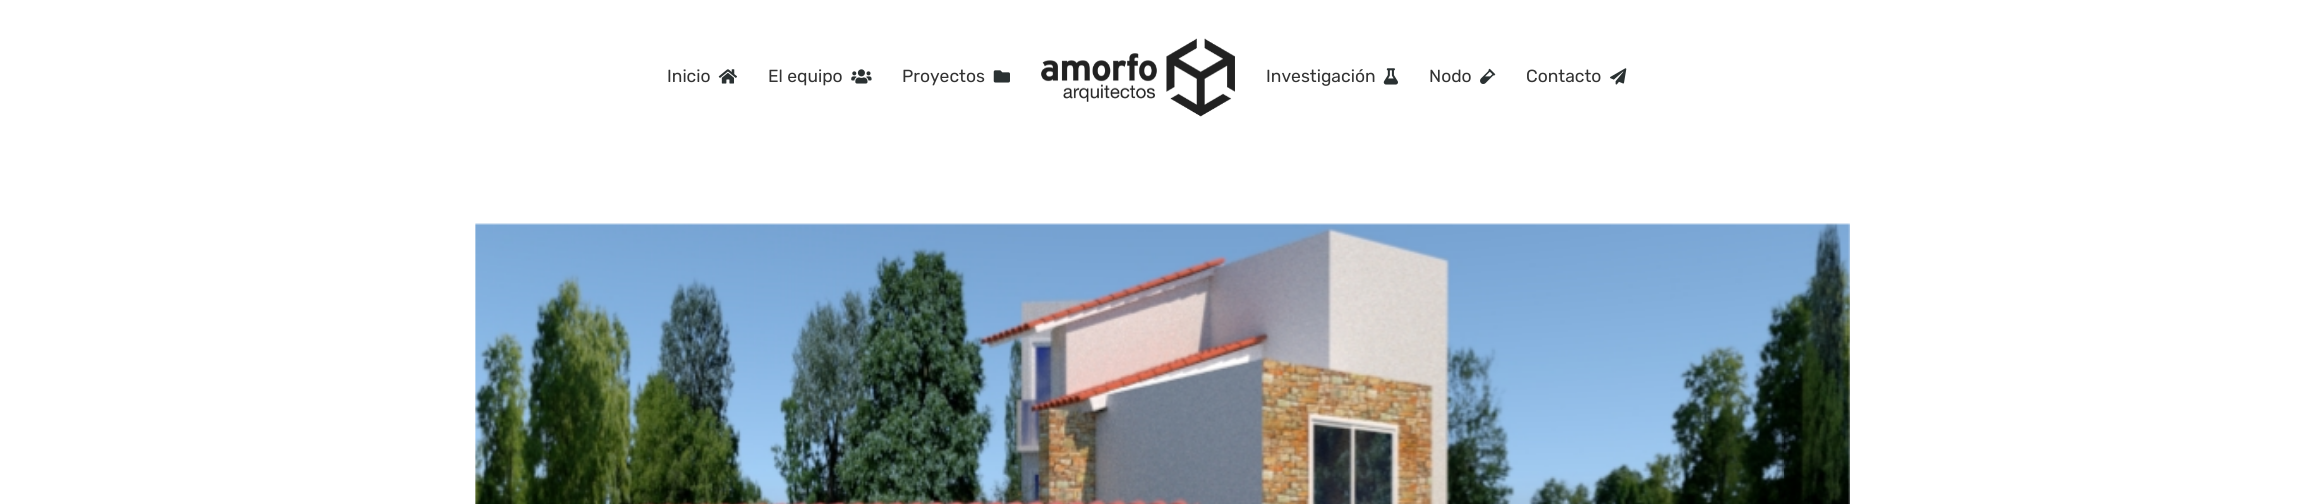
import math
import cairocffi as cairo

surface = cairo.ImageSurface(cairo.FORMAT_RGB24, 2323, 504)
cr = cairo.Context(surface)
options = cairo.FontOptions()
options.set_hint_metrics(cairo.HINT_METRICS_OFF)
options.set_hint_style(cairo.HINT_STYLE_NONE)
cr.set_font_options(options)
cr.set_miter_limit(4)


def use_color(code):
    cr.set_source_rgb(*(v / 255 for v in bytes.fromhex(code[-6:])))


def picture(path, x, y, w, h):
    cr.save()
    cr.set_source_surface(cairo.ImageSurface.create_from_png(path), x, y)
    cr.rectangle(x, y, w, h)
    cr.fill()
    cr.restore()


use_color("#ffffff")
cr.paint()
cr.select_font_face("Rubik")
cr.set_font_size(17.5)
use_color("#333333")
cr.move_to(667, 82)
cr.show_text("Inicio")
picture("img1.png", 718, 69, 19, 15)
cr.move_to(768, 82)
cr.show_text("El equipo")
picture("img2.png", 851, 69, 21, 15)
cr.move_to(902, 82)
cr.show_text("Proyectos")
picture("img3.png", 993, 70, 17, 13)
picture("img4.png", 1041, 38, 194, 79)
cr.move_to(1266, 82)
cr.show_text("Investigación")
picture("img5.png", 1383, 68, 15, 17)
cr.move_to(1429, 82)
cr.show_text("Nodo")
picture("img6.png", 1480, 68, 16, 16)
cr.move_to(1526, 82)
cr.show_text("Contacto")
picture("img7.png", 1610, 68, 17, 17)
picture("img8.png", 475, 223, 1375, 281)
surface.write_to_png("result.png")
